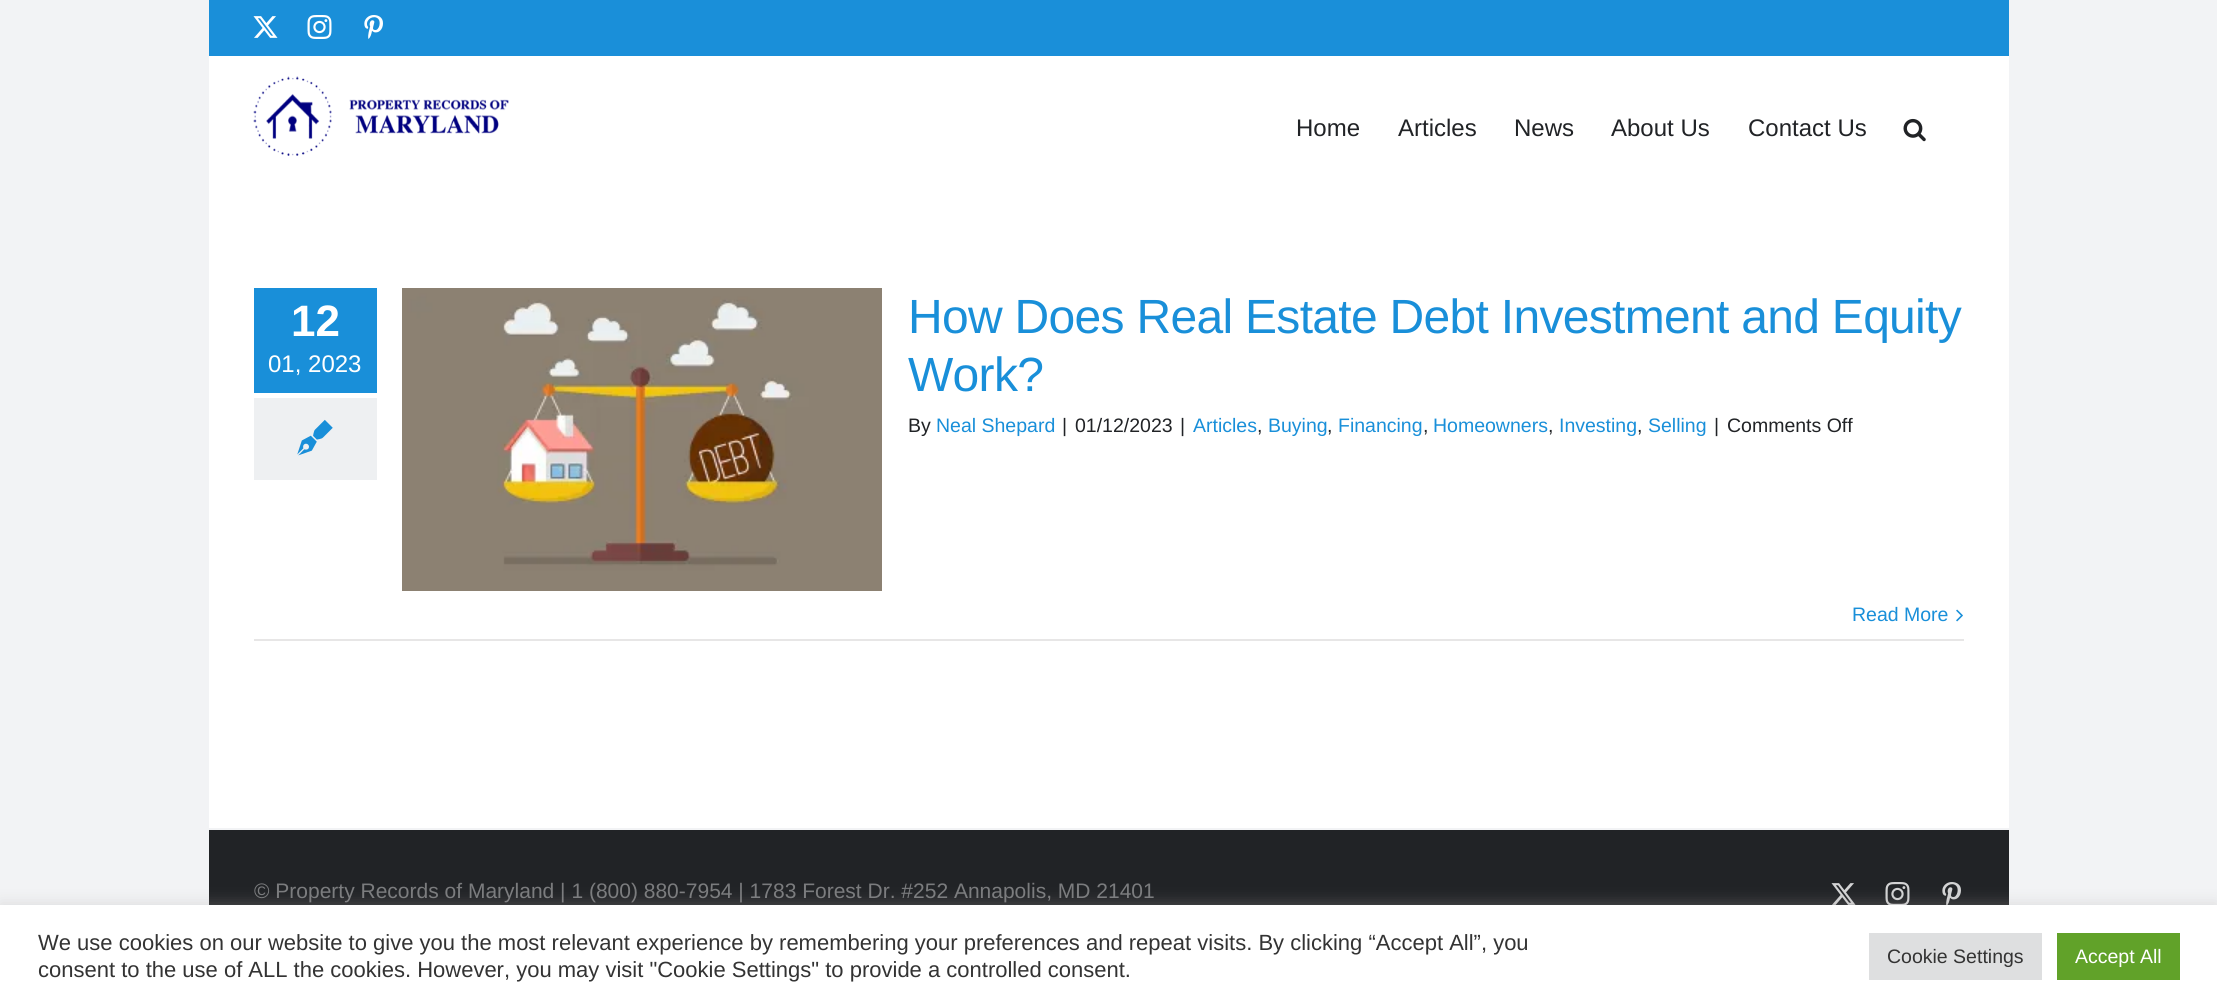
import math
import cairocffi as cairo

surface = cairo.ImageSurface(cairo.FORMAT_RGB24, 2217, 1008)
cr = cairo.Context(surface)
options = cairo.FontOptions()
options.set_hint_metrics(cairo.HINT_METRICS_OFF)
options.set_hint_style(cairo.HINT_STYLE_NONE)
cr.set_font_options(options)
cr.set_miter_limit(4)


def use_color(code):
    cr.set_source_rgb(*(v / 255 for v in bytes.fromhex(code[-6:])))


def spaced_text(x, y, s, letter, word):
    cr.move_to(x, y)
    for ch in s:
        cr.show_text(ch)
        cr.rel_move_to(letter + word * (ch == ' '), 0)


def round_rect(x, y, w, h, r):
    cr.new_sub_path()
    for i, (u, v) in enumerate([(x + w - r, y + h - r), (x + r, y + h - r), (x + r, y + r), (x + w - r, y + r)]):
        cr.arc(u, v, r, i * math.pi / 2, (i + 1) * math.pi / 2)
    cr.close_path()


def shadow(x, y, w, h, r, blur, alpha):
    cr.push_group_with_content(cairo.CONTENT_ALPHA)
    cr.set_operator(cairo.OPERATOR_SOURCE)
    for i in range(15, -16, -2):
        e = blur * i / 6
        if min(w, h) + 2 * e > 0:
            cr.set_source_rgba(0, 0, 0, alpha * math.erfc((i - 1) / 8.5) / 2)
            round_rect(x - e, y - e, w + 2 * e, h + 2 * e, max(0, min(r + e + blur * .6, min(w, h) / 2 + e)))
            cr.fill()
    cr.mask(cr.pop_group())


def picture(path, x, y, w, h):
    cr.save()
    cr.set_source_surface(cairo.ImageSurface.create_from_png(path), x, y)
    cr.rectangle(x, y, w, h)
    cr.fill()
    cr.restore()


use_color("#f2f3f5")
cr.paint()
use_color("#1a8fd9")
cr.rectangle(209, 0, 1800, 56)
cr.fill()
picture("img1.png", 253, 16, 25, 22)
picture("img2.png", 307, 15, 25, 24)
picture("img3.png", 364, 15, 19, 24)
use_color("#ffffff")
cr.rectangle(209, 56, 1800, 772)
cr.fill()
picture("img4.png", 253, 76, 256, 80)
cr.select_font_face("Liberation Sans")
cr.set_font_size(24)
use_color("#212326")
cr.move_to(1296, 136)
cr.show_text("Home")
cr.move_to(1398, 136)
cr.show_text("Articles")
cr.move_to(1514, 136)
cr.show_text("News")
cr.move_to(1611, 136)
cr.show_text("About Us")
cr.move_to(1748, 136)
cr.show_text("Contact Us")
picture("img5.png", 1903, 118, 23, 24)
use_color("#198fd9")
cr.rectangle(254, 288, 123, 105)
cr.fill()
cr.select_font_face("Liberation Sans", cairo.FONT_SLANT_NORMAL, cairo.FONT_WEIGHT_BOLD)
cr.set_font_size(44)
use_color("#ffffff")
cr.move_to(291, 336)
cr.show_text("12")
cr.select_font_face("Liberation Sans")
cr.set_font_size(24)
cr.move_to(268, 372)
cr.show_text("01, 2023")
use_color("#eef0f2")
cr.rectangle(254, 398, 123, 82)
cr.fill()
picture("img6.png", 297, 419, 36, 37)
picture("img7.png", 402, 288, 480, 303)
cr.set_font_size(48)
use_color("#198fd9")
spaced_text(908, 333, "How Does Real Estate Debt Investment and Equity", -0.7, 0)
spaced_text(908, 391, "Work?", -0.7, 0)
cr.set_font_size(19.5)
use_color("#212326")
cr.move_to(908, 432)
cr.show_text("By")
use_color("#198fd9")
cr.move_to(936, 432)
cr.show_text("Neal Shepard")
use_color("#212326")
cr.move_to(1062, 432)
cr.show_text("|")
cr.move_to(1075, 432)
cr.show_text("01/12/2023")
cr.move_to(1180, 432)
cr.show_text("|")
use_color("#198fd9")
cr.move_to(1193, 432)
cr.show_text("Articles")
use_color("#212326")
cr.move_to(1257, 432)
cr.show_text(",")
use_color("#198fd9")
cr.move_to(1268, 432)
cr.show_text("Buying")
use_color("#212326")
cr.move_to(1327, 432)
cr.show_text(",")
use_color("#198fd9")
cr.move_to(1338, 432)
cr.show_text("Financing")
use_color("#212326")
cr.move_to(1423, 432)
cr.show_text(",")
use_color("#198fd9")
cr.move_to(1433, 432)
cr.show_text("Homeowners")
use_color("#212326")
cr.move_to(1548, 432)
cr.show_text(",")
use_color("#198fd9")
cr.move_to(1559, 432)
cr.show_text("Investing")
use_color("#212326")
cr.move_to(1637, 432)
cr.show_text(",")
use_color("#198fd9")
cr.move_to(1648, 432)
cr.show_text("Selling")
use_color("#212326")
cr.move_to(1714, 432)
cr.show_text("|")
cr.move_to(1727, 432)
cr.show_text("Comments Off")
use_color("#e7e6e6")
cr.rectangle(254, 639, 1710, 2)
cr.fill()
use_color("#198fd9")
cr.move_to(1852, 621)
cr.show_text("Read More")
picture("img8.png", 1956, 609, 7, 13)
use_color("#212326")
cr.rectangle(209, 830, 1800, 75)
cr.fill()
cr.set_font_size(21)
use_color("#7a7b7d")
cr.move_to(254, 898)
cr.show_text("© Property Records of Maryland | 1 (800) 880-7954 | 1783 Forest Dr. #252 Annapolis, MD 21401")
picture("img9.png", 1831, 883, 25, 22)
picture("img10.png", 1885, 882, 25, 23)
picture("img11.png", 1942, 882, 19, 23)
use_color("#acabab")
shadow(0, 903, 2217, 104, 0, 7.5, 0.3)
use_color("#ffffff")
cr.rectangle(0, 905, 2217, 103)
cr.fill()
cr.set_font_size(22)
use_color("#333333")
cr.move_to(38, 950)
cr.show_text("We use cookies on our website to give you the most relevant experience by remembering your preferences and repeat visits. By clicking “Accept All”, you")
cr.move_to(38, 977)
cr.show_text("consent to the use of ALL the cookies. However, you may visit \"Cookie Settings\" to provide a controlled consent.")
use_color("#dedfe0")
cr.rectangle(1869, 933, 173, 47)
cr.fill()
cr.set_font_size(19.5)
use_color("#333333")
cr.move_to(1887, 963)
cr.show_text("Cookie Settings")
use_color("#61a229")
cr.rectangle(2057, 933, 123, 47)
cr.fill()
use_color("#ffffff")
cr.move_to(2075, 963)
cr.show_text("Accept All")
surface.write_to_png("result.png")
